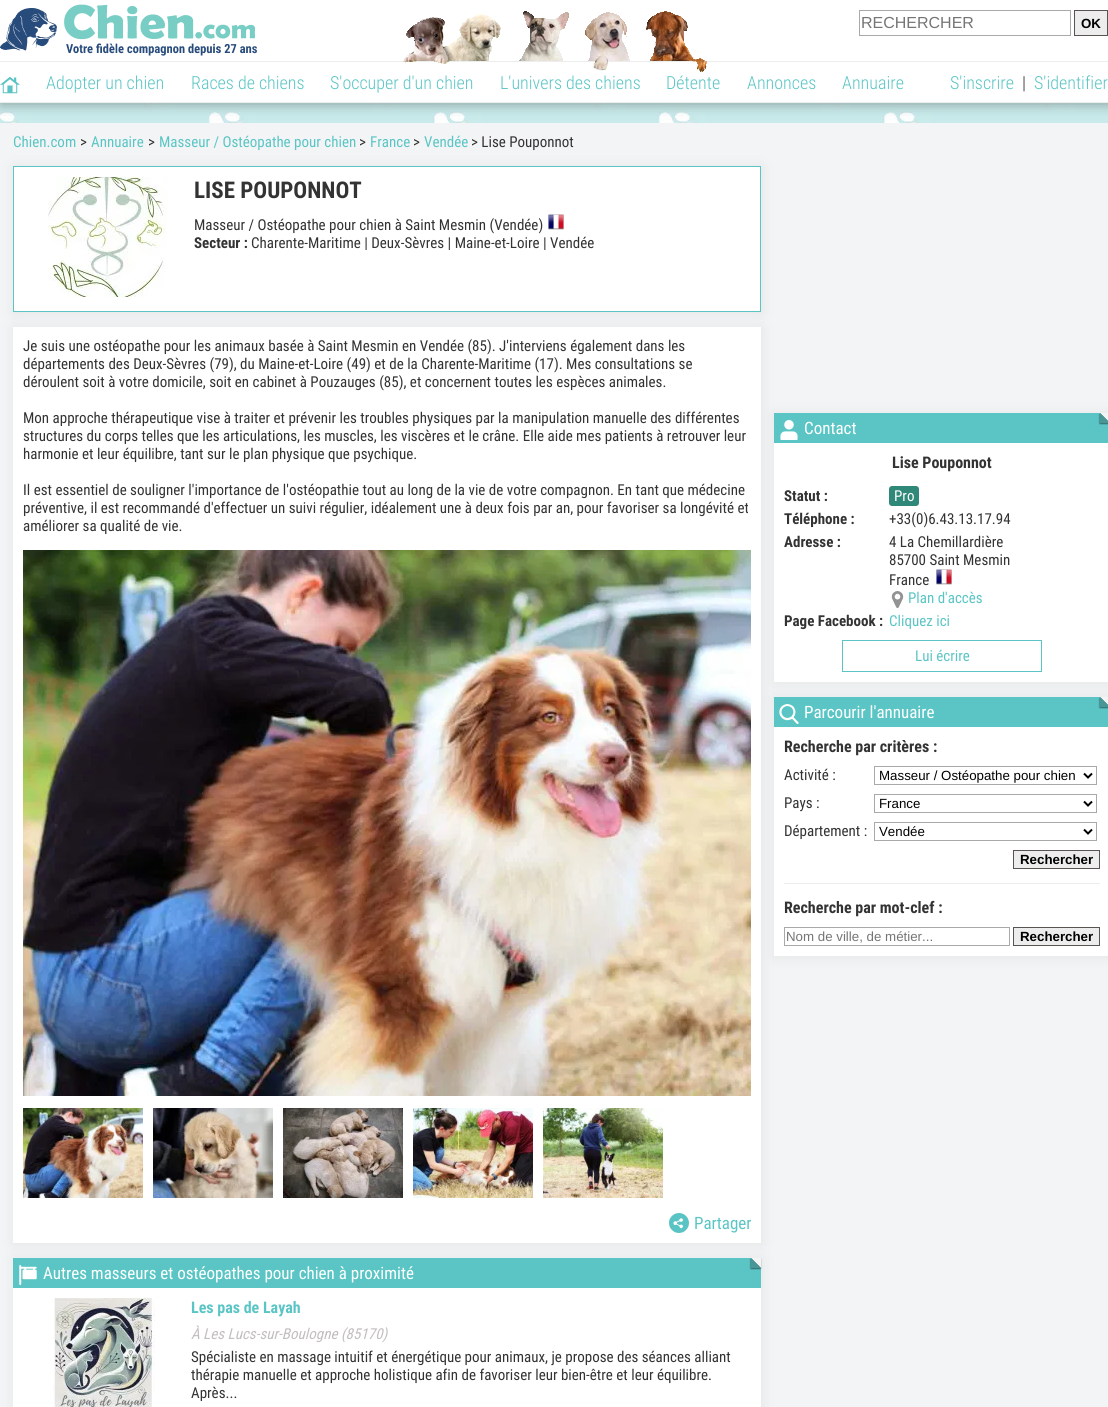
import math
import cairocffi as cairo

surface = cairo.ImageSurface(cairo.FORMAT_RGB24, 1108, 1407)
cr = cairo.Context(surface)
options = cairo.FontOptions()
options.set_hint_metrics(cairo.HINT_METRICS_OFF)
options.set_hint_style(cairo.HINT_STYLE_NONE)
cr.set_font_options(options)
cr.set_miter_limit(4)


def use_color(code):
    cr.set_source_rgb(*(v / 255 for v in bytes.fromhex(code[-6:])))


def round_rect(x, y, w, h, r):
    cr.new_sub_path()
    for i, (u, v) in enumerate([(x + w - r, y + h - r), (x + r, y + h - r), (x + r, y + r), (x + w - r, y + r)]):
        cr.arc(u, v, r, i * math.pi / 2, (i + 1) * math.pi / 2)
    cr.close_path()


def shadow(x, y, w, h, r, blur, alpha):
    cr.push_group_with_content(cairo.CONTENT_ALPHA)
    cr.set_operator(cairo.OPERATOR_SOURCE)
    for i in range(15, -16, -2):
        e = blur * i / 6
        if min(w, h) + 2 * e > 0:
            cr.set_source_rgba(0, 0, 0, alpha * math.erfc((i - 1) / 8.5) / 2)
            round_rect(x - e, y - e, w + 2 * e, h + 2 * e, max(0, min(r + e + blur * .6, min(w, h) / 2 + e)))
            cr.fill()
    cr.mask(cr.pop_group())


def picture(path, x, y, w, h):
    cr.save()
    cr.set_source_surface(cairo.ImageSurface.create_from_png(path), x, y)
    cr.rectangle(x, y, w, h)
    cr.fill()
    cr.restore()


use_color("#ffffff")
cr.paint()
picture("img1.png", 0, 103, 1108, 20)
use_color("#484848")
shadow(1, 1, 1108, 103, 0, 6.5, 0.5)
use_color("#ffffff")
cr.rectangle(0, 0, 1108, 102)
cr.fill()
use_color("#eceded")
cr.rectangle(0, 102, 1108, 1)
cr.fill()
picture("img2.png", 0, 4, 257, 52)
cr.rectangle(0, 61, 1108, 1)
cr.fill()
picture("img3.png", 403, 11, 304, 61)
cr.rectangle(859.5, 10.5, 211, 25)
use_color("#a9a9a9")
cr.set_line_width(1)
cr.stroke()
cr.select_font_face("Liberation Sans")
cr.set_font_size(16)
use_color("#757575")
cr.move_to(861, 28)
cr.show_text("RECHERCHER")
use_color("#ededed")
cr.rectangle(1074.5, 10.5, 33, 25)
cr.fill_preserve()
use_color("#585452")
cr.stroke()
cr.select_font_face("Liberation Sans", cairo.FONT_SLANT_NORMAL, cairo.FONT_WEIGHT_BOLD)
cr.set_font_size(13.3)
use_color("#000000")
cr.move_to(1081, 28)
cr.show_text("OK")
picture("img4.png", 0, 76, 20, 18)
cr.select_font_face("Roboto Light")
cr.set_font_size(18)
use_color("#5bc5c5")
cr.move_to(46, 89)
cr.show_text("Adopter un chien")
cr.move_to(191, 89)
cr.show_text("Races de chiens")
cr.move_to(330, 89)
cr.show_text("S'occuper d'un chien")
cr.move_to(500, 89)
cr.show_text("L'univers des chiens")
cr.move_to(666, 89)
cr.show_text("Détente")
cr.move_to(747, 89)
cr.show_text("Annonces")
cr.move_to(842, 89)
cr.show_text("Annuaire")
cr.move_to(950, 89)
cr.show_text("S'inscrire")
use_color("#333333")
cr.move_to(1022, 89)
cr.show_text("|")
use_color("#5bc5c5")
cr.move_to(1034, 89)
cr.show_text("S'identifier")
use_color("#f3f4f5")
cr.rectangle(0, 123, 1108, 1284)
cr.fill()
use_color("#484848")
shadow(14, 167, 748, 146, 0, 6.5, 0.1)
cr.select_font_face("Roboto Condensed")
cr.set_font_size(15)
use_color("#5bc5c5")
cr.move_to(13, 147)
cr.show_text("Chien.com")
use_color("#333333")
cr.move_to(80, 147)
cr.show_text(">")
use_color("#5bc5c5")
cr.move_to(91, 147)
cr.show_text("Annuaire")
use_color("#333333")
cr.move_to(148, 147)
cr.show_text(">")
use_color("#5bc5c5")
cr.move_to(159, 147)
cr.show_text("Masseur / Ostéopathe pour chien")
use_color("#333333")
cr.move_to(359, 147)
cr.show_text(">")
use_color("#5bc5c5")
cr.move_to(370, 147)
cr.show_text("France")
use_color("#333333")
cr.move_to(413, 147)
cr.show_text(">")
use_color("#5bc5c5")
cr.move_to(424, 147)
cr.show_text("Vendée")
use_color("#333333")
cr.move_to(471, 147)
cr.show_text("> Lise Pouponnot")
use_color("#ffffff")
cr.rectangle(13.5, 166.5, 747, 145)
cr.fill_preserve()
use_color("#5bc5c5")
cr.stroke()
picture("img5.png", 48, 177, 119, 120)
cr.select_font_face("Roboto", cairo.FONT_SLANT_NORMAL, cairo.FONT_WEIGHT_BOLD)
cr.set_font_size(23)
use_color("#333333")
cr.move_to(194, 198)
cr.show_text("LISE POUPONNOT")
cr.select_font_face("Roboto Condensed")
cr.set_font_size(15)
cr.move_to(194, 230)
cr.show_text("Masseur / Ostéopathe pour chien à Saint Mesmin (Vendée)")
picture("img6.png", 548, 214, 16, 16)
cr.select_font_face("Roboto", cairo.FONT_SLANT_NORMAL, cairo.FONT_WEIGHT_BOLD)
cr.move_to(194, 248)
cr.show_text("Secteur :")
cr.select_font_face("Roboto Condensed")
cr.move_to(251, 248)
cr.show_text("Charente-Maritime | Deux-Sèvres | Maine-et-Loire | Vendée")
use_color("#484848")
shadow(14, 328, 748, 916, 0, 6.5, 0.1)
use_color("#ffffff")
cr.rectangle(13, 327, 748, 916)
cr.fill()
use_color("#333333")
cr.move_to(23, 351)
cr.show_text("Je suis une ostéopathe pour les animaux basée à Saint Mesmin en Vendée (85). J'interviens également dans les")
cr.move_to(23, 369)
cr.show_text("départements des Deux-Sèvres (79), du Maine-et-Loire (49) et de la Charente-Maritime (17). Mes consultations se")
cr.move_to(23, 387)
cr.show_text("déroulent soit à votre domicile, soit en cabinet à Pouzauges (85), et concernent toutes les espèces animales.")
cr.move_to(23, 423)
cr.show_text("Mon approche thérapeutique vise à traiter et prévenir les troubles physiques par la manipulation manuelle des différentes")
cr.move_to(23, 441)
cr.show_text("structures du corps telles que les articulations, les muscles, les viscères et le crâne. Elle aide mes patients à retrouver leur")
cr.move_to(23, 459)
cr.show_text("harmonie et leur équilibre, tant sur le plan physique que psychique.")
cr.move_to(23, 495)
cr.show_text("Il est essentiel de souligner l'importance de l'ostéopathie tout au long de la vie de votre compagnon. En tant que médecine")
cr.move_to(23, 513)
cr.show_text("préventive, il est recommandé d'effectuer un suivi régulier, idéalement une à deux fois par an, pour favoriser sa longévité et")
cr.move_to(23, 531)
cr.show_text("améliorer sa qualité de vie.")
picture("img7.png", 23, 550, 728, 546)
picture("img8.png", 23, 1108, 120, 90)
picture("img9.png", 153, 1108, 120, 90)
picture("img10.png", 283, 1108, 120, 90)
picture("img11.png", 413, 1108, 120, 90)
picture("img12.png", 543, 1108, 120, 90)
picture("img13.png", 669, 1213, 20, 20)
cr.set_font_size(17)
use_color("#5bc5c5")
cr.move_to(694, 1229)
cr.show_text("Partager")
use_color("#484848")
shadow(14, 1259, 748, 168, 0, 6.5, 0.1)
use_color("#ffffff")
cr.rectangle(13, 1288, 748, 119)
cr.fill()
use_color("#5bc5c5")
cr.rectangle(13, 1258, 748, 30)
cr.fill()
picture("img14.png", 19, 1265, 18, 20)
use_color("#ffffff")
cr.move_to(43, 1279)
cr.show_text("Autres masseurs et ostéopathes pour chien à proximité")
use_color("#000000")
shadow(750, 1259, 10, 10, 0, 0.5, 0.2)
shadow(751, 1259, 10, 10, 0, 0.5, 0.3)
use_color("#f3f4f5")
cr.new_path()
cr.move_to(761, 1258)
cr.line_to(761, 1268)
cr.line_to(751, 1258)
cr.close_path()
cr.fill()
use_color("#499696")
cr.new_path()
cr.move_to(761, 1268)
cr.line_to(751, 1268)
cr.line_to(751, 1258)
cr.close_path()
cr.fill()
picture("img15.png", 53, 1298, 102, 109)
cr.select_font_face("Roboto", cairo.FONT_SLANT_NORMAL, cairo.FONT_WEIGHT_BOLD)
cr.set_font_size(16)
use_color("#5bc5c5")
cr.move_to(191, 1313)
cr.show_text("Les pas de Layah")
cr.select_font_face("Roboto Condensed", cairo.FONT_SLANT_ITALIC)
cr.set_font_size(15)
use_color("#c2bfbe")
cr.move_to(191, 1339)
cr.show_text("À Les Lucs-sur-Boulogne (85170)")
cr.select_font_face("Roboto Condensed")
use_color("#333333")
cr.move_to(191, 1362)
cr.show_text("Spécialiste en massage intuitif et énergétique pour animaux, je propose des séances alliant")
cr.move_to(191, 1380)
cr.show_text("thérapie manuelle et approche holistique afin de favoriser leur bien-être et leur équilibre.")
cr.move_to(191, 1398)
cr.show_text("Après...")
use_color("#484848")
shadow(775, 414, 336, 269, 0, 6.5, 0.1)
use_color("#ffffff")
cr.rectangle(774, 443, 334, 239)
cr.fill()
use_color("#5bc5c5")
cr.rectangle(774, 413, 334, 30)
cr.fill()
picture("img16.png", 780, 420, 18, 20)
cr.set_font_size(17)
use_color("#ffffff")
cr.move_to(804, 434)
cr.show_text("Contact")
use_color("#000000")
shadow(1099, 414, 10, 10, 0, 0.5, 0.2)
shadow(1100, 414, 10, 10, 0, 0.5, 0.3)
use_color("#f3f4f5")
cr.new_path()
cr.move_to(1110, 413)
cr.line_to(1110, 423)
cr.line_to(1100, 413)
cr.close_path()
cr.fill()
use_color("#499696")
cr.new_path()
cr.move_to(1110, 423)
cr.line_to(1100, 423)
cr.line_to(1100, 413)
cr.close_path()
cr.fill()
cr.select_font_face("Roboto", cairo.FONT_SLANT_NORMAL, cairo.FONT_WEIGHT_BOLD)
cr.set_font_size(16)
use_color("#333333")
cr.move_to(892, 468)
cr.show_text("Lise Pouponnot")
cr.set_font_size(15)
cr.move_to(784, 501)
cr.show_text("Statut :")
use_color("#308978")
round_rect(889, 486, 30, 20, 3)
cr.fill()
cr.select_font_face("Roboto Condensed")
use_color("#ffffff")
cr.move_to(894, 501)
cr.show_text("Pro")
cr.select_font_face("Roboto", cairo.FONT_SLANT_NORMAL, cairo.FONT_WEIGHT_BOLD)
use_color("#333333")
cr.move_to(784, 524)
cr.show_text("Téléphone :")
cr.select_font_face("Roboto Condensed")
cr.move_to(889, 524)
cr.show_text("+33(0)6.43.13.17.94")
cr.select_font_face("Roboto", cairo.FONT_SLANT_NORMAL, cairo.FONT_WEIGHT_BOLD)
cr.move_to(784, 547)
cr.show_text("Adresse :")
cr.select_font_face("Roboto Condensed")
cr.move_to(889, 547)
cr.show_text("4 La Chemillardière")
cr.move_to(889, 565)
cr.show_text("85700 Saint Mesmin")
cr.move_to(889, 585)
cr.show_text("France")
picture("img6.png", 936, 569, 16, 16)
picture("img17.png", 891, 591, 13, 17)
use_color("#5bc5c5")
cr.move_to(908, 603)
cr.show_text("Plan d'accès")
cr.select_font_face("Roboto", cairo.FONT_SLANT_NORMAL, cairo.FONT_WEIGHT_BOLD)
use_color("#333333")
cr.move_to(784, 626)
cr.show_text("Page Facebook :")
cr.select_font_face("Roboto Condensed")
use_color("#5bc5c5")
cr.move_to(889, 626)
cr.show_text("Cliquez ici")
cr.rectangle(842.5, 640.5, 199, 31)
cr.stroke()
cr.move_to(915, 661)
cr.show_text("Lui écrire")
use_color("#484848")
shadow(775, 698, 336, 259, 0, 6.5, 0.1)
use_color("#ffffff")
cr.rectangle(774, 727, 334, 229)
cr.fill()
use_color("#5bc5c5")
cr.rectangle(774, 697, 334, 30)
cr.fill()
picture("img18.png", 779, 704, 20, 20)
cr.set_font_size(17)
use_color("#ffffff")
cr.move_to(804, 718)
cr.show_text("Parcourir l'annuaire")
use_color("#000000")
shadow(1099, 698, 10, 10, 0, 0.5, 0.2)
shadow(1100, 698, 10, 10, 0, 0.5, 0.3)
use_color("#f3f4f5")
cr.new_path()
cr.move_to(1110, 697)
cr.line_to(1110, 707)
cr.line_to(1100, 697)
cr.close_path()
cr.fill()
use_color("#499696")
cr.new_path()
cr.move_to(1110, 707)
cr.line_to(1100, 707)
cr.line_to(1100, 697)
cr.close_path()
cr.fill()
cr.select_font_face("Roboto", cairo.FONT_SLANT_NORMAL, cairo.FONT_WEIGHT_BOLD)
cr.set_font_size(16)
use_color("#333333")
cr.move_to(784, 752)
cr.show_text("Recherche par critères :")
cr.select_font_face("Roboto Condensed")
cr.set_font_size(15)
cr.move_to(784, 780)
cr.show_text("Activité :")
cr.rectangle(874.5, 766.5, 222, 18)
use_color("#a9a9a9")
cr.stroke()
cr.new_path()
cr.move_to(1084, 773.5)
cr.line_to(1088, 777.5)
cr.line_to(1092, 773.5)
use_color("#000000")
cr.set_line_width(2)
cr.stroke()
cr.select_font_face("Liberation Sans")
cr.set_font_size(13.3)
cr.move_to(879, 780)
cr.show_text("Masseur / Ostéopathe pour chien")
cr.select_font_face("Roboto Condensed")
cr.set_font_size(15)
use_color("#333333")
cr.move_to(784, 808)
cr.show_text("Pays :")
cr.rectangle(874.5, 794.5, 222, 18)
use_color("#a9a9a9")
cr.set_line_width(1)
cr.stroke()
cr.new_path()
cr.move_to(1084, 801.5)
cr.line_to(1088, 805.5)
cr.line_to(1092, 801.5)
use_color("#000000")
cr.set_line_width(2)
cr.stroke()
cr.select_font_face("Liberation Sans")
cr.set_font_size(13.3)
cr.move_to(879, 808)
cr.show_text("France")
cr.select_font_face("Roboto Condensed")
cr.set_font_size(15)
use_color("#333333")
cr.move_to(784, 836)
cr.show_text("Département :")
cr.rectangle(874.5, 822.5, 222, 18)
use_color("#a9a9a9")
cr.set_line_width(1)
cr.stroke()
cr.new_path()
cr.move_to(1084, 829.5)
cr.line_to(1088, 833.5)
cr.line_to(1092, 829.5)
use_color("#000000")
cr.set_line_width(2)
cr.stroke()
cr.select_font_face("Liberation Sans")
cr.set_font_size(13.3)
cr.move_to(879, 836)
cr.show_text("Vendée")
use_color("#ededed")
cr.rectangle(1013.5, 850.5, 86, 18)
cr.fill_preserve()
use_color("#585452")
cr.set_line_width(1)
cr.stroke()
cr.select_font_face("Liberation Sans", cairo.FONT_SLANT_NORMAL, cairo.FONT_WEIGHT_BOLD)
use_color("#000000")
cr.move_to(1020, 864)
cr.show_text("Rechercher")
use_color("#eceded")
cr.rectangle(784, 883, 316, 1)
cr.fill()
cr.select_font_face("Roboto", cairo.FONT_SLANT_NORMAL, cairo.FONT_WEIGHT_BOLD)
cr.set_font_size(16)
use_color("#333333")
cr.move_to(784, 913)
cr.show_text("Recherche par mot-clef :")
cr.rectangle(784.5, 927.5, 225, 18)
use_color("#a9a9a9")
cr.stroke()
cr.select_font_face("Liberation Sans")
cr.set_font_size(13.3)
use_color("#757575")
cr.move_to(786, 941)
cr.show_text("Nom de ville, de métier...")
use_color("#ededed")
cr.rectangle(1013.5, 927.5, 86, 18)
cr.fill_preserve()
use_color("#585452")
cr.stroke()
cr.select_font_face("Liberation Sans", cairo.FONT_SLANT_NORMAL, cairo.FONT_WEIGHT_BOLD)
use_color("#000000")
cr.move_to(1020, 941)
cr.show_text("Rechercher")
surface.write_to_png("result.png")
